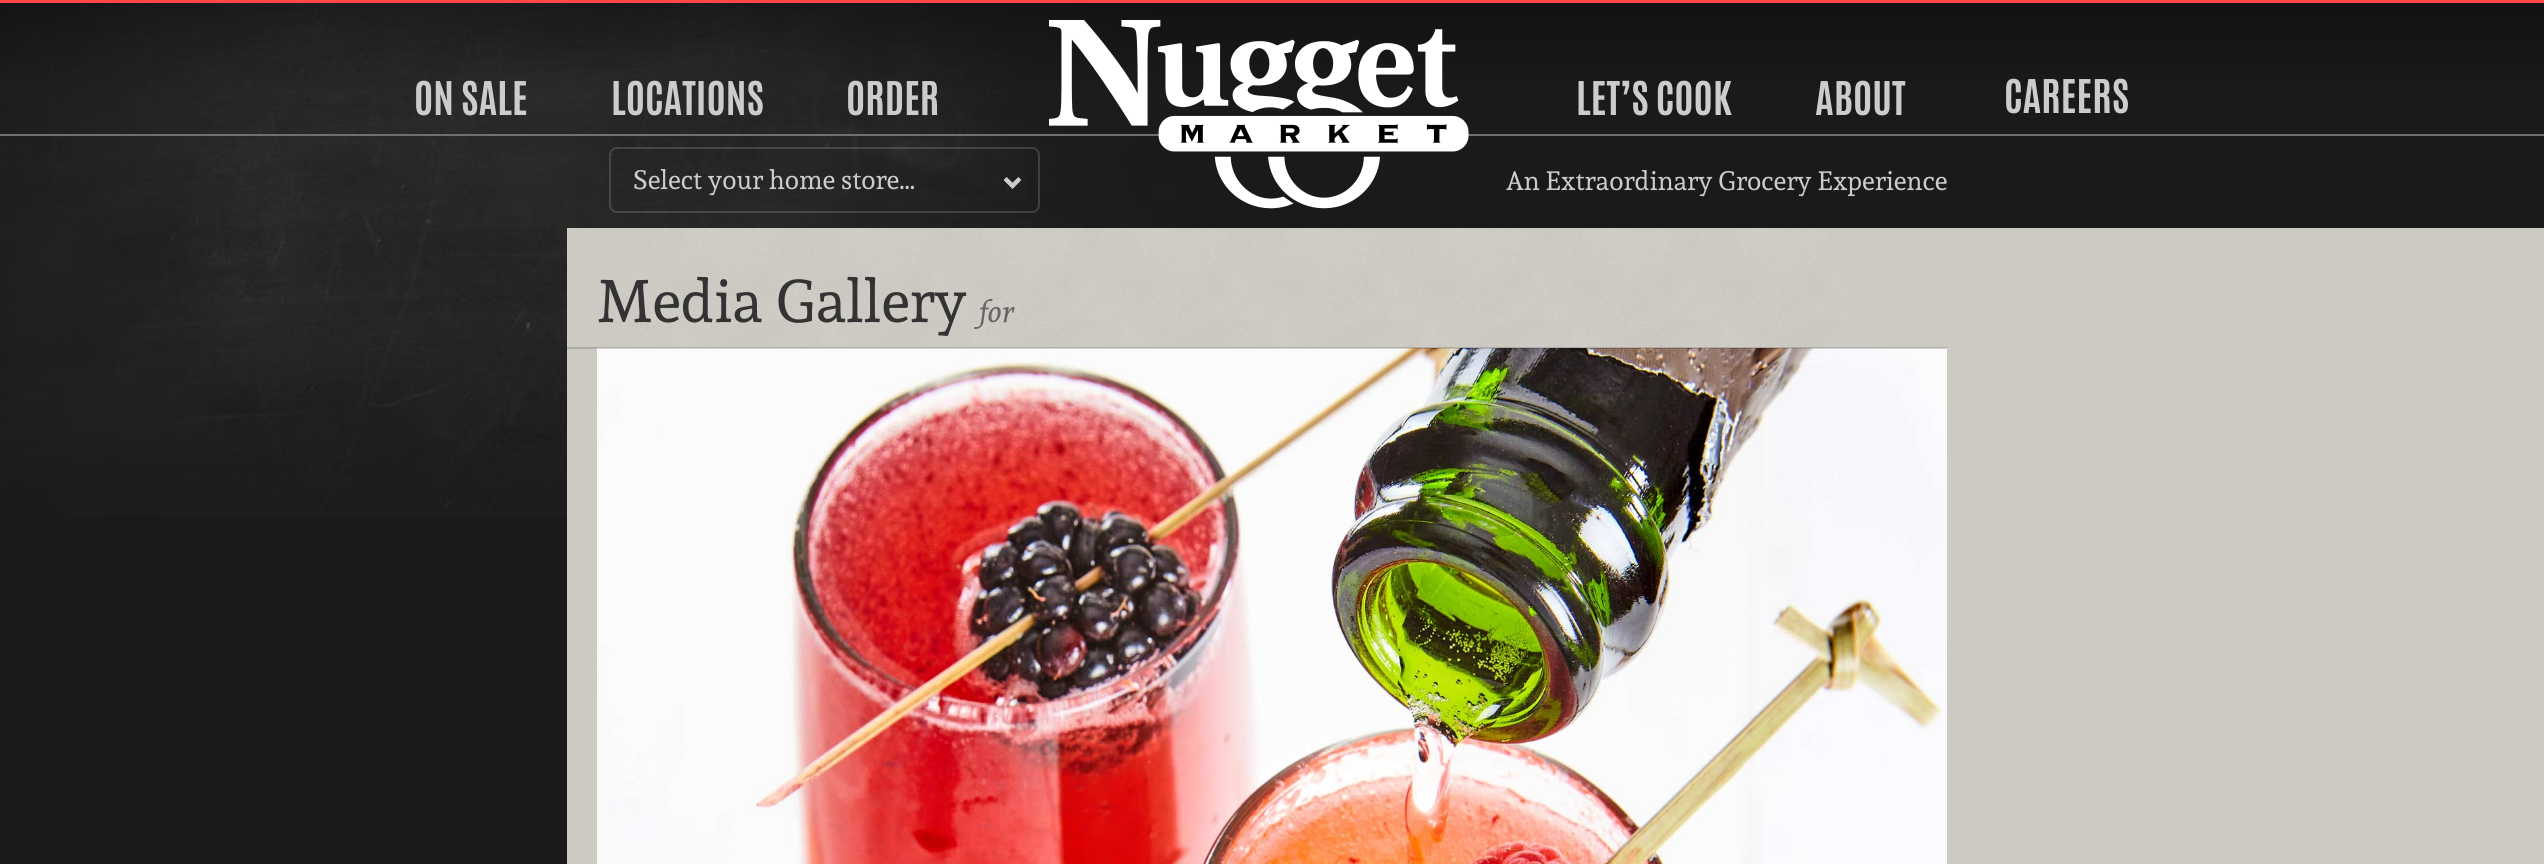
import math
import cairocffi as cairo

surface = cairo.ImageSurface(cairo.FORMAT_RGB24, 2544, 864)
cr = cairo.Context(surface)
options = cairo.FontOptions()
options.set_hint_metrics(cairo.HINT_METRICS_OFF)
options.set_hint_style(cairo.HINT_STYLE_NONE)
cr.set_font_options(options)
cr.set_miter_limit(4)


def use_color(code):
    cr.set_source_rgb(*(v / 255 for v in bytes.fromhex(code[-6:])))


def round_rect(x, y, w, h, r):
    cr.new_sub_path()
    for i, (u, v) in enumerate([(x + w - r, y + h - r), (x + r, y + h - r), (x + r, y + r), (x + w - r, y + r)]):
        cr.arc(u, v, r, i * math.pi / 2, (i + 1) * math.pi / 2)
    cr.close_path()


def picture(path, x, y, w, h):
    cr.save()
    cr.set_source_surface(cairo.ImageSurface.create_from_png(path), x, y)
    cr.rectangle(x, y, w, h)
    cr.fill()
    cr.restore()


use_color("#1a1a1a")
cr.paint()
picture("img1.png", 0, 3, 2544, 514)
use_color("#fb4746")
cr.rectangle(0, 0, 2544, 3)
cr.fill()
use_color("#707070")
cr.rectangle(0, 134, 2544, 2)
cr.fill()
cr.select_font_face("Antonio", cairo.FONT_SLANT_NORMAL, cairo.FONT_WEIGHT_BOLD)
cr.set_font_size(39.5)
use_color("#cccccc")
cr.move_to(414, 115)
cr.show_text("ON SALE")
cr.move_to(611, 115)
cr.show_text("LOCATIONS")
cr.move_to(846, 115)
cr.show_text("ORDER")
picture("img2.png", 1049, 20, 420, 189)
cr.move_to(1576, 115)
cr.show_text("LET’S COOK")
cr.move_to(1815, 115)
cr.show_text("ABOUT")
cr.move_to(2004, 113)
cr.show_text("CAREERS")
round_rect(610, 148, 429, 64, 7)
cr.set_source_rgba(1, 1, 1, 0.15)
cr.stroke()
cr.select_font_face("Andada")
cr.set_font_size(26.4)
use_color("#cccccc")
cr.move_to(633, 189)
cr.show_text("Select your home store…")
picture("img3.png", 1004, 177, 18, 12)
cr.move_to(1506, 190)
cr.show_text("An Extraordinary Grocery Experience")
use_color("#cdcac3")
cr.rectangle(567, 228, 1977, 636)
cr.fill()
picture("img4.png", 627, 228, 1222, 120)
picture("img5.png", 597, 348, 1350, 516)
cr.set_source_rgba(0, 0, 0, 0.15)
cr.rectangle(567, 347, 1380, 2)
cr.fill()
cr.set_font_size(59.5)
use_color("#333333")
cr.move_to(597, 322)
cr.show_text("Media Gallery")
cr.select_font_face("Andada", cairo.FONT_SLANT_ITALIC)
cr.set_font_size(30)
use_color("#666666")
cr.move_to(979, 322)
cr.show_text("for")
surface.write_to_png("result.png")
